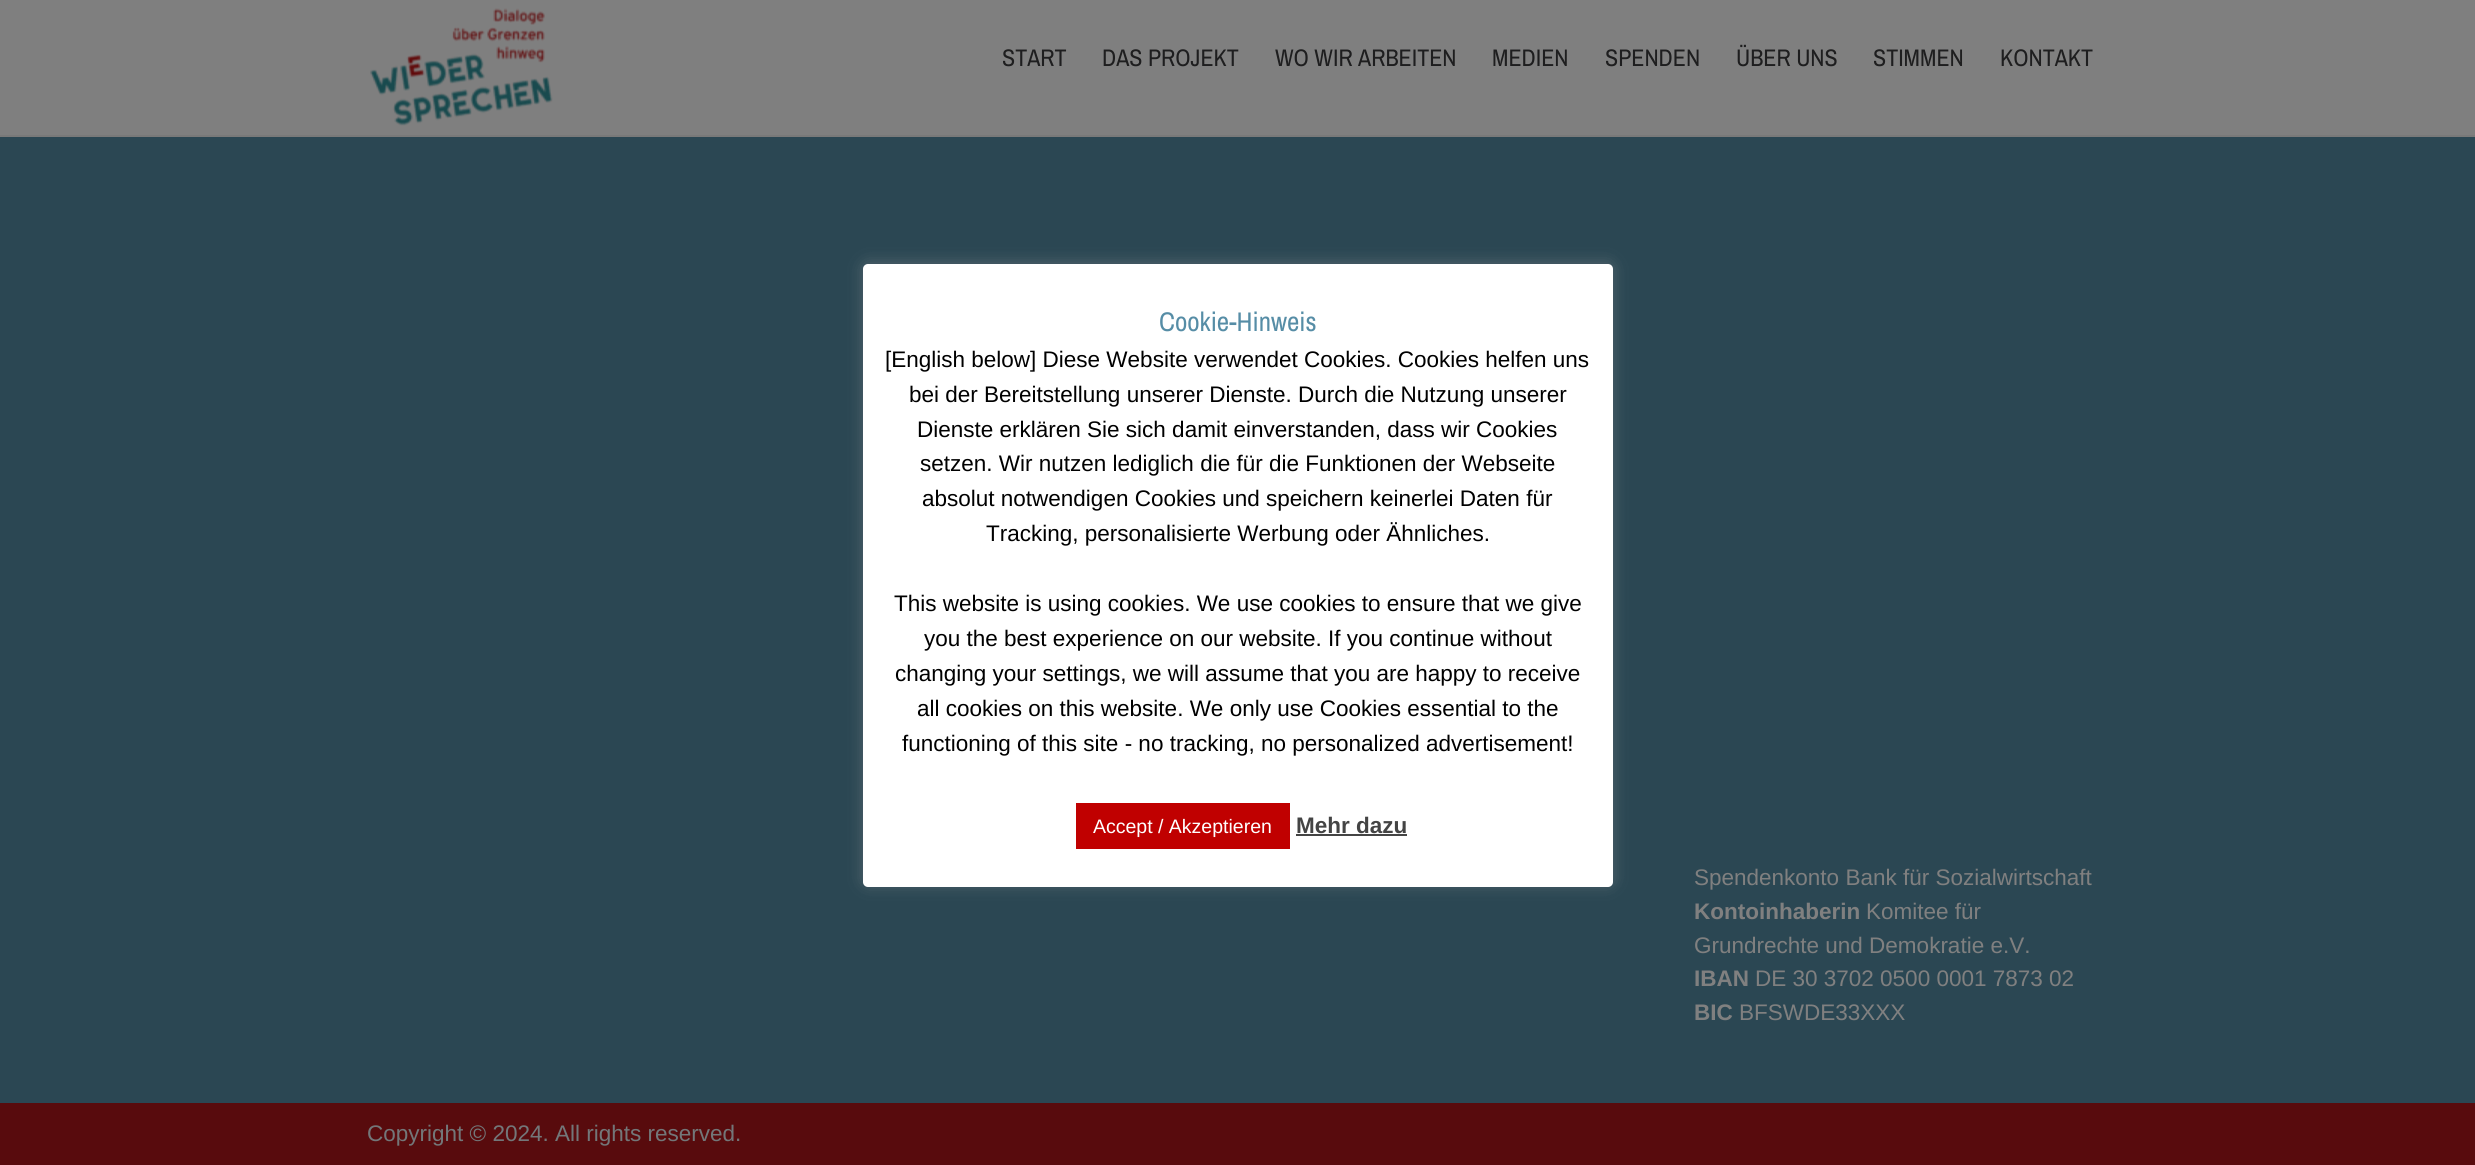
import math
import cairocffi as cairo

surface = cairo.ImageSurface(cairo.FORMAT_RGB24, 2475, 1165)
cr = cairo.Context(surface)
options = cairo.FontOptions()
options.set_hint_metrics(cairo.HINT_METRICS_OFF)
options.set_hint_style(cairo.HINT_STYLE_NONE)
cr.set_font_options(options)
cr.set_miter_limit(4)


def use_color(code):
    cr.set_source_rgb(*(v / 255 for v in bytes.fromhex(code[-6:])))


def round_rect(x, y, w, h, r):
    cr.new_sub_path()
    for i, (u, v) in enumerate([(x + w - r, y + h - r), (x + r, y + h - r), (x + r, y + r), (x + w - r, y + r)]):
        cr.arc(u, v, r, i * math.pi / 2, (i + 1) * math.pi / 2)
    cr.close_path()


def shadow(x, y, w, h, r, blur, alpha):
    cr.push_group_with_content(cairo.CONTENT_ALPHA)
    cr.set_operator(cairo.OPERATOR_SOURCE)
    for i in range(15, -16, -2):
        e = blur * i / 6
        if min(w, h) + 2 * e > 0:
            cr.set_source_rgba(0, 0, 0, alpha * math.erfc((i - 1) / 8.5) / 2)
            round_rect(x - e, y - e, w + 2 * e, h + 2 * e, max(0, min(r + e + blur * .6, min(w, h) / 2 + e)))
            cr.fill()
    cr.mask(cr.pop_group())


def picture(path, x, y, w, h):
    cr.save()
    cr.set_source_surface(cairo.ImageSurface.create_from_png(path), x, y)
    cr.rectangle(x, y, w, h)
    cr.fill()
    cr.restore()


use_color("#2b4753")
cr.paint()
use_color("#7f7f7f")
cr.rectangle(0, 0, 2475, 135)
cr.fill()
use_color("#797979")
cr.rectangle(0, 135, 2475, 2)
cr.fill()
picture("img1.png", 370, 8, 183, 118)
cr.select_font_face("Archivo Narrow")
cr.set_font_size(24)
use_color("#1e1e1f")
cr.move_to(1002, 66)
cr.show_text("START")
cr.move_to(1102, 66)
cr.show_text("DAS PROJEKT")
cr.move_to(1275, 66)
cr.show_text("WO WIR ARBEITEN")
cr.move_to(1492, 66)
cr.show_text("MEDIEN")
cr.move_to(1605, 66)
cr.show_text("SPENDEN")
cr.move_to(1736, 66)
cr.show_text("ÜBER UNS")
cr.move_to(1873, 66)
cr.show_text("STIMMEN")
cr.move_to(2000, 66)
cr.show_text("KONTAKT")
use_color("#acabab")
shadow(863, 263, 750, 622, 5, 7.5, 0.3)
use_color("#ffffff")
round_rect(863, 264, 750, 623, 5)
cr.fill()
cr.set_font_size(27)
use_color("#568da6")
cr.move_to(1159, 331)
cr.show_text("Cookie-Hinweis")
cr.select_font_face("Arimo")
cr.set_font_size(22.5)
use_color("#000000")
cr.move_to(885, 367)
cr.show_text("[English below] Diese Website verwendet Cookies. Cookies helfen uns")
cr.move_to(909, 402)
cr.show_text("bei der Bereitstellung unserer Dienste. Durch die Nutzung unserer")
cr.move_to(917, 437)
cr.show_text("Dienste erklären Sie sich damit einverstanden, dass wir Cookies")
cr.move_to(920, 471)
cr.show_text("setzen. Wir nutzen lediglich die für die Funktionen der Webseite")
cr.move_to(922, 506)
cr.show_text("absolut notwendigen Cookies und speichern keinerlei Daten für")
cr.move_to(986, 541)
cr.show_text("Tracking, personalisierte Werbung oder Ähnliches.")
cr.move_to(894, 611)
cr.show_text("This website is using cookies. We use cookies to ensure that we give")
cr.move_to(924, 646)
cr.show_text("you the best experience on our website. If you continue without")
cr.move_to(895, 681)
cr.show_text("changing your settings, we will assume that you are happy to receive")
cr.move_to(917, 716)
cr.show_text("all cookies on this website. We only use Cookies essential to the")
cr.move_to(902, 751)
cr.show_text("functioning of this site - no tracking, no personalized advertisement!")
use_color("#c00000")
cr.rectangle(1076, 803, 214, 46)
cr.fill()
cr.set_font_size(19.5)
use_color("#ffffff")
cr.move_to(1093, 833)
cr.show_text("Accept / Akzeptieren")
cr.select_font_face("Arimo", cairo.FONT_SLANT_NORMAL, cairo.FONT_WEIGHT_BOLD)
cr.set_font_size(22.5)
use_color("#444444")
cr.move_to(1296, 833)
cr.show_text("Mehr dazu")
cr.rectangle(1296, 834, 111, 2)
cr.fill()
cr.select_font_face("Arimo")
use_color("#808080")
cr.move_to(1694, 885)
cr.show_text("Spendenkonto Bank für Sozialwirtschaft")
cr.select_font_face("Arimo", cairo.FONT_SLANT_NORMAL, cairo.FONT_WEIGHT_BOLD)
cr.move_to(1694, 919)
cr.show_text("Kontoinhaberin")
cr.select_font_face("Arimo")
cr.move_to(1866, 919)
cr.show_text("Komitee für")
cr.move_to(1694, 953)
cr.show_text("Grundrechte und Demokratie e.V.")
cr.select_font_face("Arimo", cairo.FONT_SLANT_NORMAL, cairo.FONT_WEIGHT_BOLD)
cr.move_to(1694, 986)
cr.show_text("IBAN")
cr.select_font_face("Arimo")
cr.move_to(1755, 986)
cr.show_text("DE 30 3702 0500 0001 7873 02")
cr.select_font_face("Arimo", cairo.FONT_SLANT_NORMAL, cairo.FONT_WEIGHT_BOLD)
cr.move_to(1694, 1020)
cr.show_text("BIC")
cr.select_font_face("Arimo")
cr.move_to(1739, 1020)
cr.show_text("BFSWDE33XXX")
use_color("#580b0d")
cr.rectangle(0, 1103, 2475, 62)
cr.fill()
use_color("#737779")
cr.move_to(367, 1141)
cr.show_text("Copyright © 2024. All rights reserved.")
surface.write_to_png("result.png")
